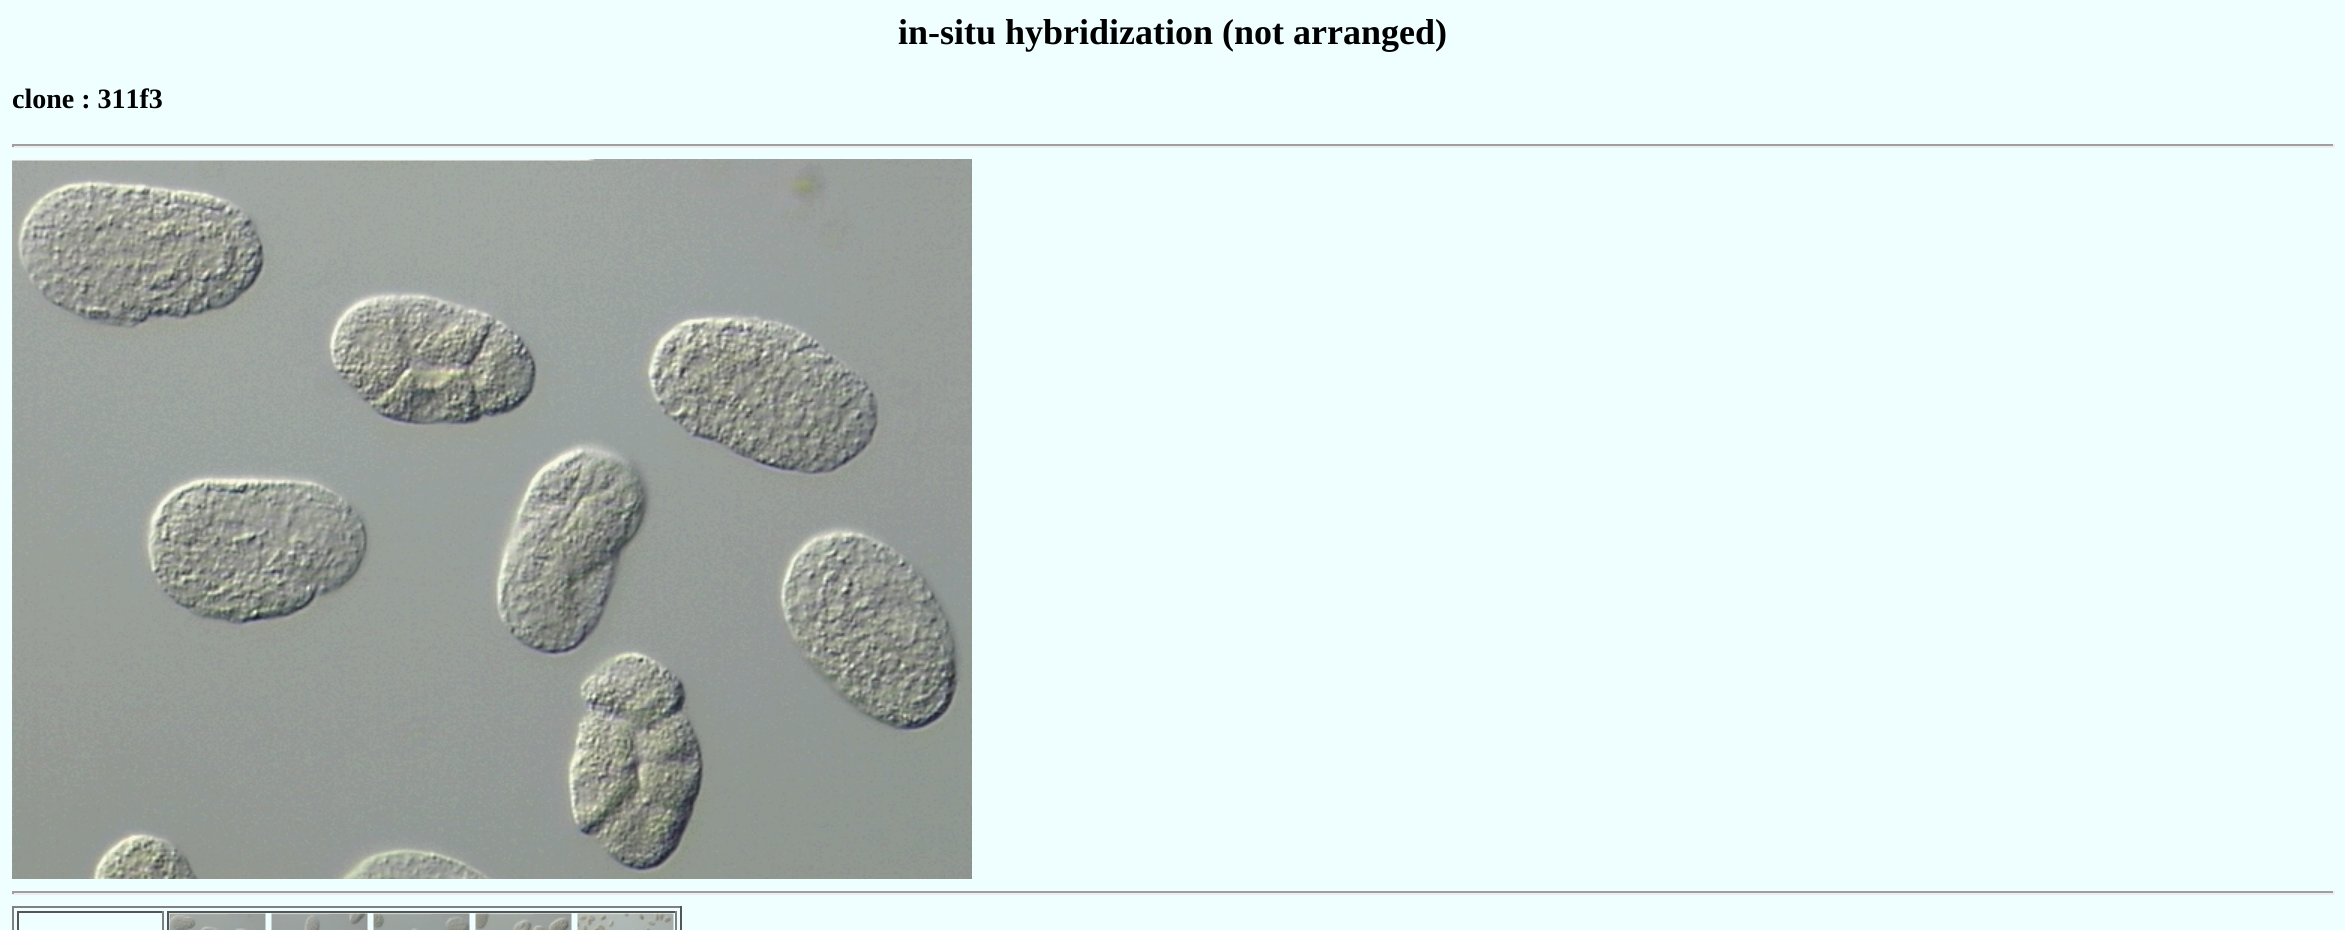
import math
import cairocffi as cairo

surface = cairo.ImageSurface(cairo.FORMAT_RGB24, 2345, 930)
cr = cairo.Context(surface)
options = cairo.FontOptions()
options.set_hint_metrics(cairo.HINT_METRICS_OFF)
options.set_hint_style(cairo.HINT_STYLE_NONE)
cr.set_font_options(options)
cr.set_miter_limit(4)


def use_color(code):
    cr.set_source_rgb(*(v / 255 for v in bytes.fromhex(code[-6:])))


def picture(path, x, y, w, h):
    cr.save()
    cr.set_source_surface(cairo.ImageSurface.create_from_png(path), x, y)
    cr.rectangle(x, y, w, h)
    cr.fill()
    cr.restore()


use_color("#efffff")
cr.paint()
cr.select_font_face("Liberation Serif", cairo.FONT_SLANT_NORMAL, cairo.FONT_WEIGHT_BOLD)
cr.set_font_size(36)
use_color("#000000")
cr.move_to(898, 44)
cr.show_text("in-situ hybridization (not arranged)")
cr.set_font_size(28)
cr.move_to(12, 108)
cr.show_text("clone : 311f3")
use_color("#9f9f9f")
cr.rectangle(12, 144, 2322, 2)
cr.fill()
use_color("#eeeeee")
cr.rectangle(2333, 144, 2, 3)
cr.fill()
cr.rectangle(12, 146, 2322, 2)
cr.fill()
use_color("#9f9f9f")
cr.rectangle(12, 144, 2, 3)
cr.fill()
picture("img1.png", 12, 159, 960, 720)
cr.rectangle(12, 891, 2322, 2)
cr.fill()
use_color("#eeeeee")
cr.rectangle(2333, 891, 2, 3)
cr.fill()
cr.rectangle(12, 893, 2322, 2)
cr.fill()
use_color("#9f9f9f")
cr.rectangle(12, 891, 2, 3)
cr.fill()
use_color("#808080")
cr.rectangle(12, 906, 669, 2)
cr.fill()
use_color("#555555")
cr.rectangle(680, 906, 2, 24)
cr.fill()
use_color("#808080")
cr.rectangle(12, 906, 2, 24)
cr.fill()
use_color("#555555")
cr.rectangle(17, 911, 147, 2)
cr.fill()
use_color("#808080")
cr.rectangle(162, 911, 2, 19)
cr.fill()
use_color("#555555")
cr.rectangle(17, 911, 2, 19)
cr.fill()
cr.rectangle(167, 911, 510, 2)
cr.fill()
use_color("#808080")
cr.rectangle(675, 911, 2, 19)
cr.fill()
use_color("#555555")
cr.rectangle(167, 911, 2, 19)
cr.fill()
picture("img2.png", 169, 913, 97, 17)
picture("img3.png", 271, 913, 97, 17)
picture("img4.png", 373, 913, 97, 17)
picture("img5.png", 475, 913, 97, 17)
picture("img6.png", 577, 913, 97, 17)
surface.write_to_png("result.png")
